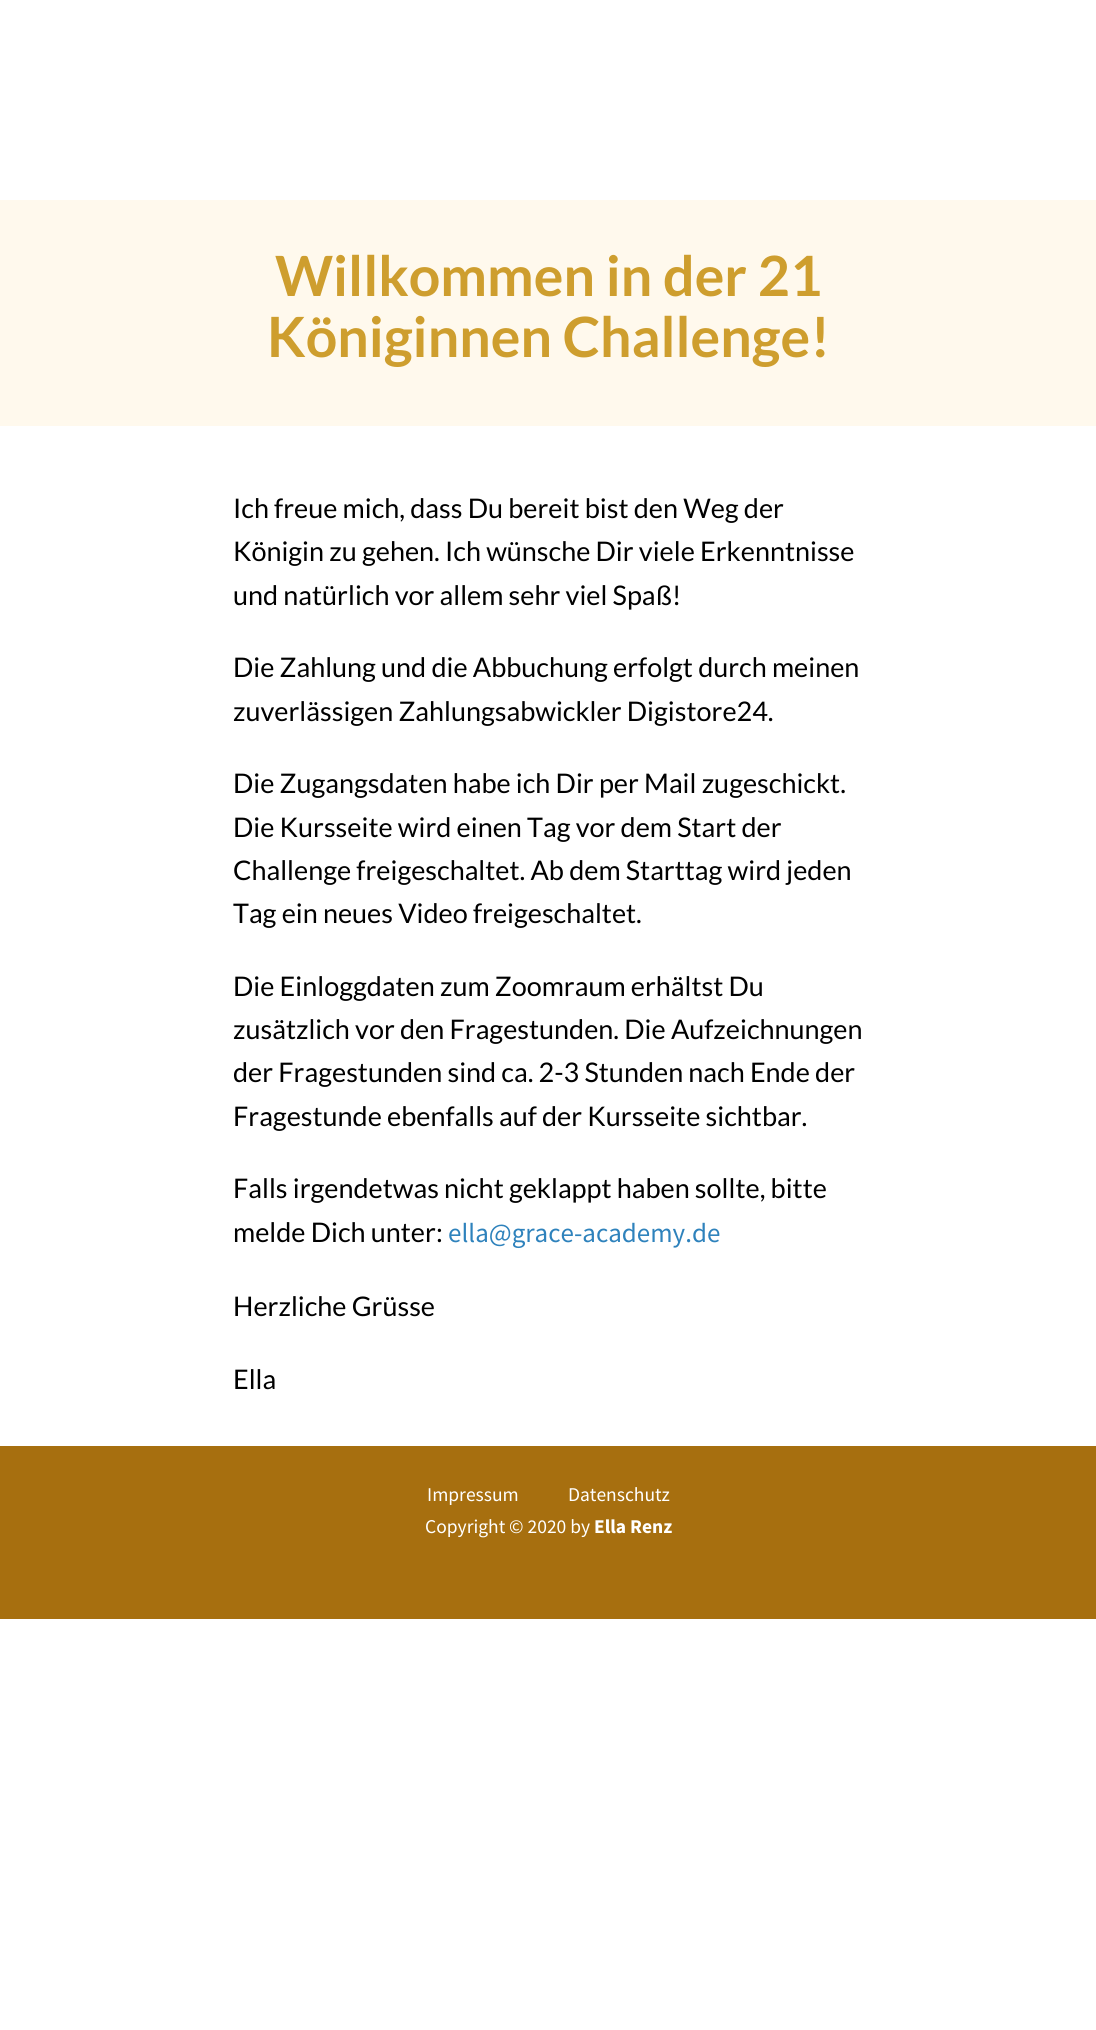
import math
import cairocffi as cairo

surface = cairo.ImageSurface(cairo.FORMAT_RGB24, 1096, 2030)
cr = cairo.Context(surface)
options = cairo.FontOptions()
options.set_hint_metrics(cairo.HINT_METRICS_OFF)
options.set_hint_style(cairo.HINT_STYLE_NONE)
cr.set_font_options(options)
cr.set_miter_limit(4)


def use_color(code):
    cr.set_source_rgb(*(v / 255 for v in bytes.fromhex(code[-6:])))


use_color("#ffffff")
cr.paint()
use_color("#fff9ed")
cr.rectangle(0, 200, 1096, 226)
cr.fill()
cr.select_font_face("Lato", cairo.FONT_SLANT_NORMAL, cairo.FONT_WEIGHT_BOLD)
cr.set_font_size(55.5)
use_color("#ce9e2e")
cr.move_to(275, 296)
cr.show_text("Willkommen in der 21")
cr.move_to(267, 357)
cr.show_text("Königinnen Challenge!")
cr.select_font_face("Lato")
cr.set_font_size(27)
use_color("#000000")
cr.move_to(233, 518)
cr.show_text("Ich freue mich, dass Du bereit bist den Weg der")
cr.move_to(233, 561)
cr.show_text("Königin zu gehen. Ich wünsche Dir viele Erkenntnisse")
cr.move_to(233, 605)
cr.show_text("und natürlich vor allem sehr viel Spaß!")
cr.move_to(233, 677)
cr.show_text("Die Zahlung und die Abbuchung erfolgt durch meinen")
cr.move_to(233, 721)
cr.show_text("zuverlässigen Zahlungsabwickler Digistore24.")
cr.move_to(233, 793)
cr.show_text("Die Zugangsdaten habe ich Dir per Mail zugeschickt.")
cr.move_to(233, 837)
cr.show_text("Die Kursseite wird einen Tag vor dem Start der")
cr.move_to(233, 880)
cr.show_text("Challenge freigeschaltet. Ab dem Starttag wird jeden")
cr.move_to(233, 923)
cr.show_text("Tag ein neues Video freigeschaltet.")
cr.move_to(233, 996)
cr.show_text("Die Einloggdaten zum Zoomraum erhältst Du")
cr.move_to(233, 1039)
cr.show_text("zusätzlich vor den Fragestunden. Die Aufzeichnungen")
cr.move_to(233, 1082)
cr.show_text("der Fragestunden sind ca. 2-3 Stunden nach Ende der")
cr.move_to(233, 1126)
cr.show_text("Fragestunde ebenfalls auf der Kursseite sichtbar.")
cr.move_to(233, 1198)
cr.show_text("Falls irgendetwas nicht geklappt haben sollte, bitte")
cr.move_to(233, 1242)
cr.show_text("melde Dich unter:")
cr.select_font_face("Source Sans Pro")
use_color("#2e82bc")
cr.move_to(448, 1242)
cr.show_text("ella@grace-academy.de")
cr.select_font_face("Lato")
use_color("#000000")
cr.move_to(233, 1316)
cr.show_text("Herzliche Grüsse")
cr.move_to(233, 1389)
cr.show_text("Ella")
use_color("#a76f0f")
cr.rectangle(0, 1446, 1096, 173)
cr.fill()
cr.select_font_face("Source Sans Pro")
cr.set_font_size(19.5)
use_color("#ffffff")
cr.move_to(427, 1501)
cr.show_text("Impressum")
cr.move_to(568, 1501)
cr.show_text("Datenschutz")
cr.move_to(425, 1533)
cr.show_text("Copyright © 2020 by")
cr.select_font_face("Source Sans Pro", cairo.FONT_SLANT_NORMAL, cairo.FONT_WEIGHT_BOLD)
cr.move_to(594, 1533)
cr.show_text("Ella Renz")
surface.write_to_png("result.png")
